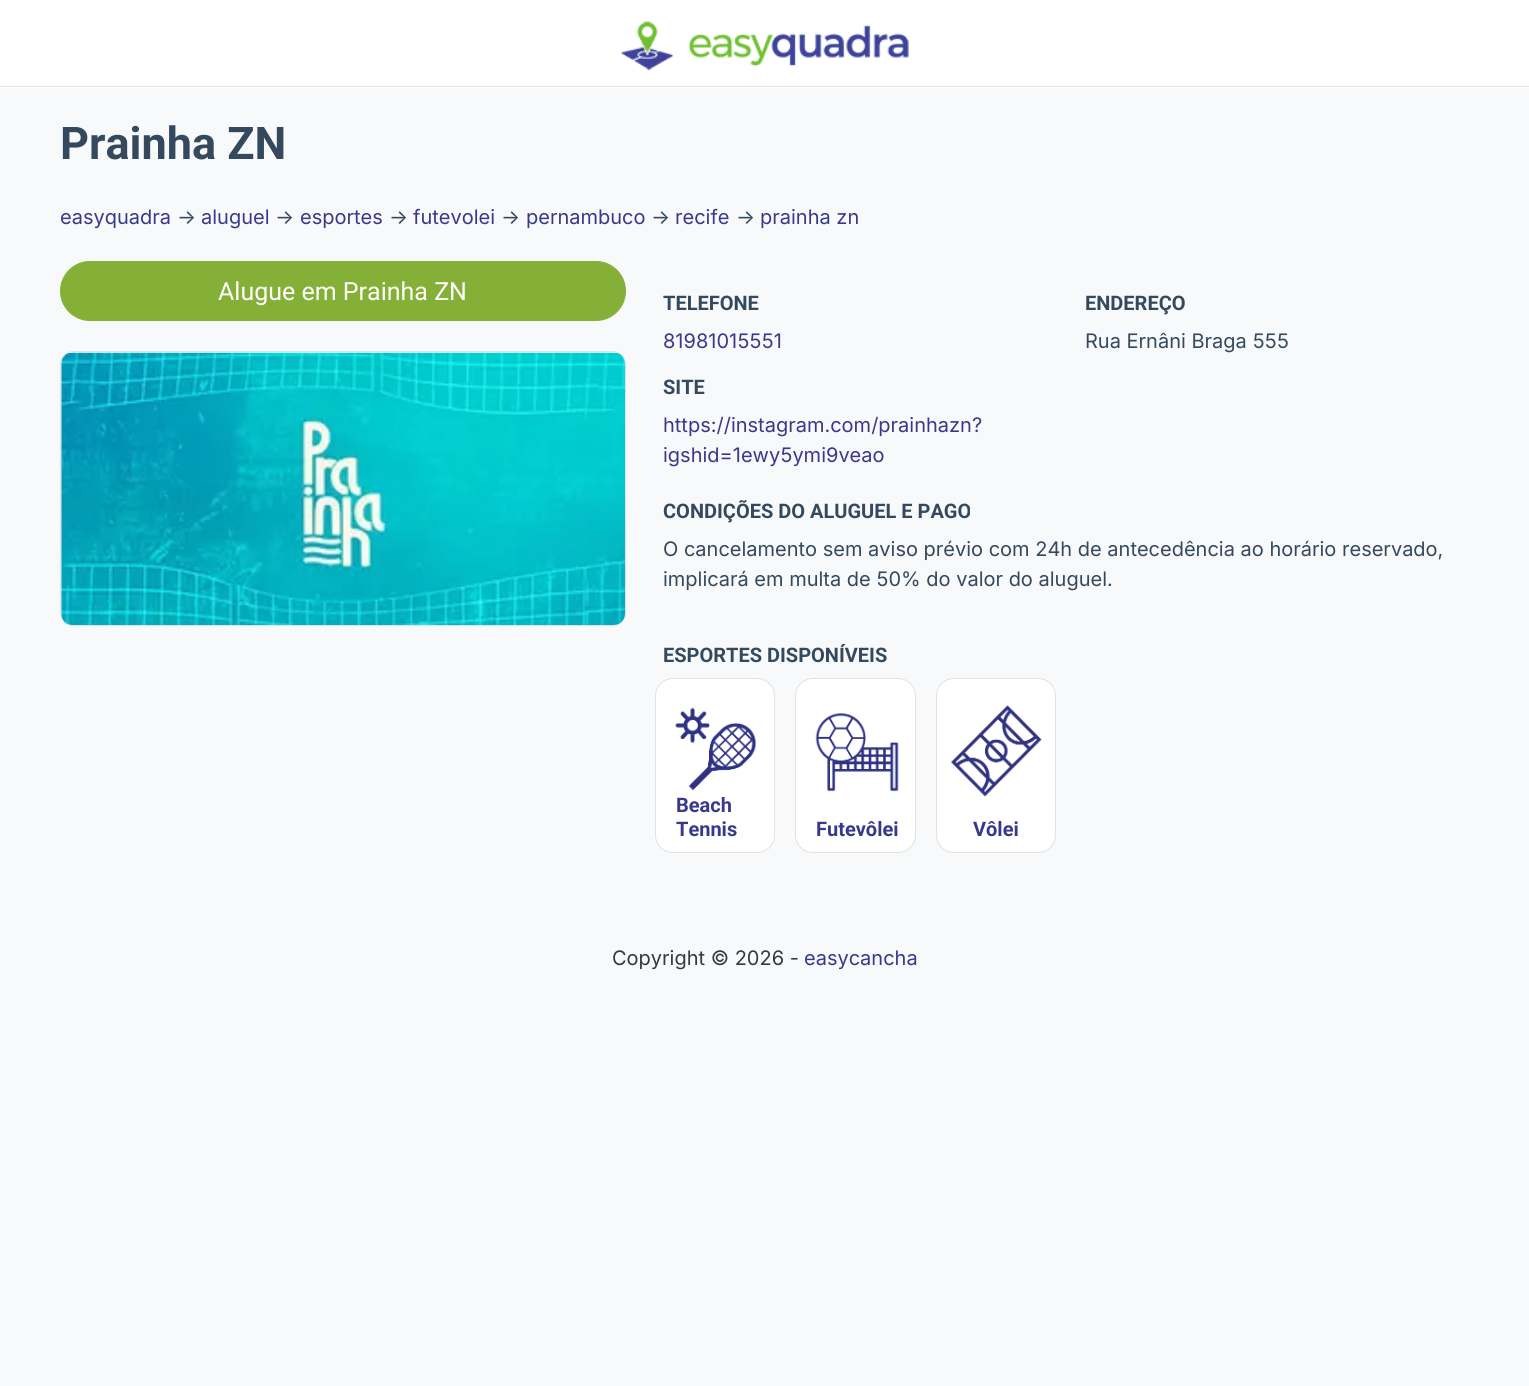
import math
import cairocffi as cairo

surface = cairo.ImageSurface(cairo.FORMAT_RGB24, 1529, 1386)
cr = cairo.Context(surface)
options = cairo.FontOptions()
options.set_hint_metrics(cairo.HINT_METRICS_OFF)
options.set_hint_style(cairo.HINT_STYLE_NONE)
cr.set_font_options(options)
cr.set_miter_limit(4)


def use_color(code):
    cr.set_source_rgb(*(v / 255 for v in bytes.fromhex(code[-6:])))


def round_rect(x, y, w, h, r):
    cr.new_sub_path()
    for i, (u, v) in enumerate([(x + w - r, y + h - r), (x + r, y + h - r), (x + r, y + r), (x + w - r, y + r)]):
        cr.arc(u, v, r, i * math.pi / 2, (i + 1) * math.pi / 2)
    cr.close_path()


def picture(path, x, y, w, h):
    cr.save()
    cr.set_source_surface(cairo.ImageSurface.create_from_png(path), x, y)
    cr.rectangle(x, y, w, h)
    cr.fill()
    cr.restore()


use_color("#f8f9fa")
cr.paint()
use_color("#ffffff")
cr.rectangle(0, 0, 1529, 88)
cr.fill()
use_color("#dee2e6")
cr.rectangle(0, 86, 1529, 1)
cr.fill()
picture("img1.png", 621, 21, 288, 50)
cr.select_font_face("Roboto", cairo.FONT_SLANT_NORMAL, cairo.FONT_WEIGHT_BOLD)
cr.set_font_size(45)
use_color("#34495e")
cr.move_to(60, 159)
cr.show_text("Prainha ZN")
cr.select_font_face("Inter")
cr.set_font_size(20)
use_color("#39398b")
cr.move_to(60, 224)
cr.show_text("easyquadra")
use_color("#34495e")
cr.move_to(177, 224)
cr.show_text("→")
use_color("#39398b")
cr.move_to(201, 224)
cr.show_text("aluguel")
use_color("#34495e")
cr.move_to(275, 224)
cr.show_text("→")
use_color("#39398b")
cr.move_to(300, 224)
cr.show_text("esportes")
use_color("#34495e")
cr.move_to(389, 224)
cr.show_text("→")
use_color("#39398b")
cr.move_to(413, 224)
cr.show_text("futevolei")
use_color("#34495e")
cr.move_to(501, 224)
cr.show_text("→")
use_color("#39398b")
cr.move_to(526, 224)
cr.show_text("pernambuco")
use_color("#34495e")
cr.move_to(651, 224)
cr.show_text("→")
use_color("#39398b")
cr.move_to(675, 224)
cr.show_text("recife")
use_color("#34495e")
cr.move_to(736, 224)
cr.show_text("→")
use_color("#39398b")
cr.move_to(760, 224)
cr.show_text("prainha zn")
use_color("#85b037")
round_rect(60.5, 261.5, 565, 59, 29.5)
cr.fill_preserve()
cr.set_line_width(1)
cr.stroke()
cr.select_font_face("Roboto")
cr.set_font_size(25)
use_color("#ffffff")
cr.move_to(218, 300)
cr.show_text("Alugue em Prainha ZN")
round_rect(60, 351, 566, 275, 13)
cr.fill()
round_rect(60.5, 351.5, 565, 274, 12.5)
cr.set_source_rgba(0, 0, 0, 0.12)
cr.stroke()
picture("img2.png", 61, 352, 564, 273)
cr.select_font_face("Roboto", cairo.FONT_SLANT_NORMAL, cairo.FONT_WEIGHT_BOLD)
cr.set_font_size(20)
use_color("#34495e")
cr.move_to(663, 310)
cr.show_text("TELEFONE")
cr.select_font_face("Inter")
use_color("#39398b")
cr.move_to(663, 348)
cr.show_text("81981015551")
cr.select_font_face("Roboto", cairo.FONT_SLANT_NORMAL, cairo.FONT_WEIGHT_BOLD)
use_color("#34495e")
cr.move_to(1085, 310)
cr.show_text("ENDEREÇO")
cr.select_font_face("Inter")
cr.move_to(1085, 348)
cr.show_text("Rua Ernâni Braga 555")
cr.select_font_face("Roboto", cairo.FONT_SLANT_NORMAL, cairo.FONT_WEIGHT_BOLD)
cr.move_to(663, 394)
cr.show_text("SITE")
cr.select_font_face("Inter")
use_color("#39398b")
cr.move_to(663, 432)
cr.show_text("https://instagram.com/prainhazn?")
cr.move_to(663, 462)
cr.show_text("igshid=1ewy5ymi9veao")
cr.select_font_face("Roboto", cairo.FONT_SLANT_NORMAL, cairo.FONT_WEIGHT_BOLD)
use_color("#34495e")
cr.move_to(663, 518)
cr.show_text("CONDIÇÕES DO ALUGUEL E PAGO")
cr.select_font_face("Inter")
cr.move_to(663, 556)
cr.show_text("O cancelamento sem aviso prévio com 24h de antecedência ao horário reservado,")
cr.move_to(663, 586)
cr.show_text("implicará em multa de 50% do valor do aluguel.")
cr.select_font_face("Roboto", cairo.FONT_SLANT_NORMAL, cairo.FONT_WEIGHT_BOLD)
cr.move_to(663, 662)
cr.show_text("ESPORTES DISPONÍVEIS")
use_color("#ffffff")
round_rect(655, 678, 120, 175, 18)
cr.fill()
round_rect(655.5, 678.5, 119, 174, 17.5)
cr.set_source_rgba(0, 0, 0, 0.12)
cr.stroke()
picture("img3.png", 675, 707, 82, 84)
use_color("#39398b")
cr.move_to(676, 812)
cr.show_text("Beach")
cr.move_to(676, 836)
cr.show_text("Tennis")
use_color("#ffffff")
round_rect(795, 678, 121, 175, 18)
cr.fill()
round_rect(795.5, 678.5, 120, 174, 17.5)
cr.set_source_rgba(0, 0, 0, 0.12)
cr.stroke()
picture("img4.png", 815, 712, 84, 80)
use_color("#39398b")
cr.move_to(816, 836)
cr.show_text("Futevôlei")
use_color("#ffffff")
round_rect(936, 678, 120, 175, 18)
cr.fill()
round_rect(936.5, 678.5, 119, 174, 17.5)
cr.set_source_rgba(0, 0, 0, 0.12)
cr.stroke()
picture("img5.png", 951, 705, 91, 92)
use_color("#39398b")
cr.move_to(973, 836)
cr.show_text("Vôlei")
cr.select_font_face("Inter")
use_color("#343a40")
cr.move_to(612, 965)
cr.show_text("Copyright © 2026 -")
use_color("#39398b")
cr.move_to(804, 965)
cr.show_text("easycancha")
surface.write_to_png("result.png")
